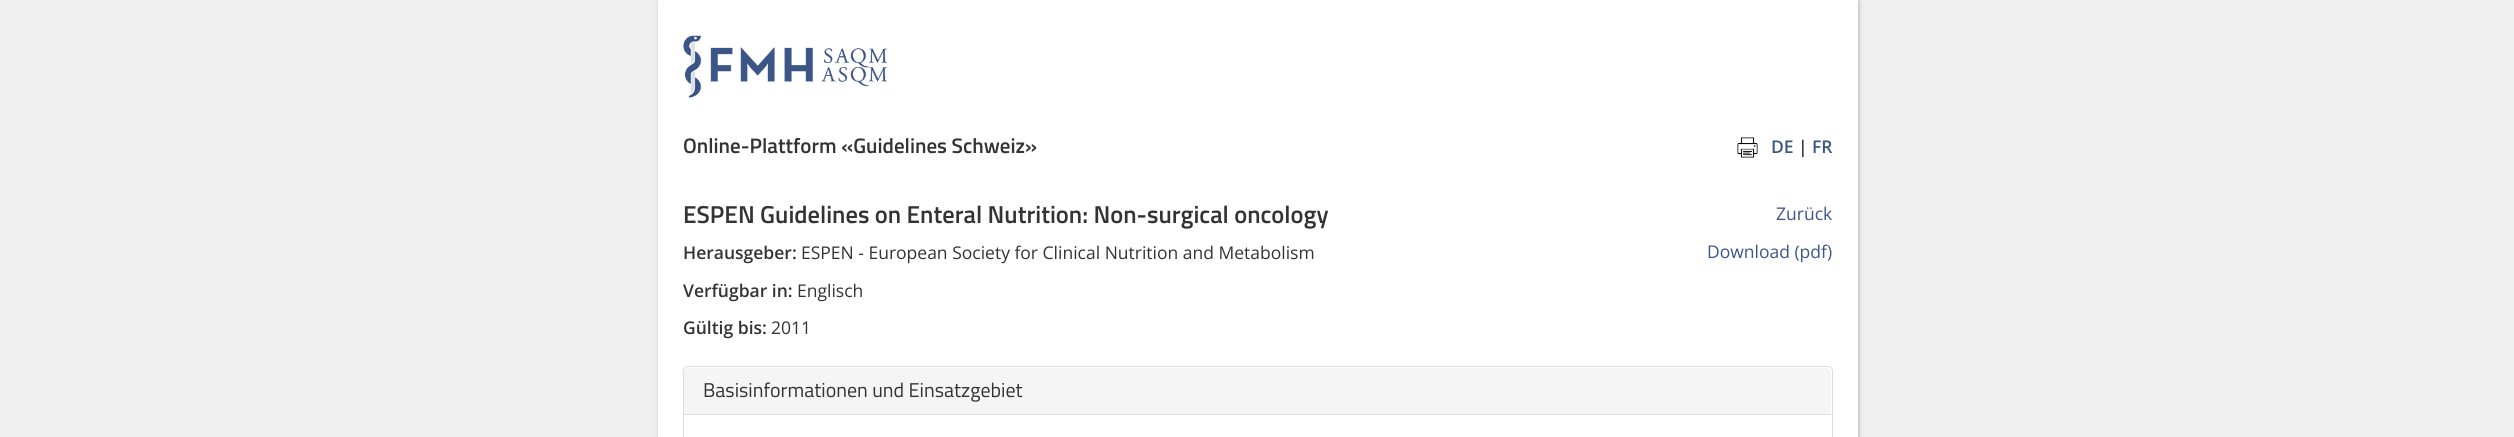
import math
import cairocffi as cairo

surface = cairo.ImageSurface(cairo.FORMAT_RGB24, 2514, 437)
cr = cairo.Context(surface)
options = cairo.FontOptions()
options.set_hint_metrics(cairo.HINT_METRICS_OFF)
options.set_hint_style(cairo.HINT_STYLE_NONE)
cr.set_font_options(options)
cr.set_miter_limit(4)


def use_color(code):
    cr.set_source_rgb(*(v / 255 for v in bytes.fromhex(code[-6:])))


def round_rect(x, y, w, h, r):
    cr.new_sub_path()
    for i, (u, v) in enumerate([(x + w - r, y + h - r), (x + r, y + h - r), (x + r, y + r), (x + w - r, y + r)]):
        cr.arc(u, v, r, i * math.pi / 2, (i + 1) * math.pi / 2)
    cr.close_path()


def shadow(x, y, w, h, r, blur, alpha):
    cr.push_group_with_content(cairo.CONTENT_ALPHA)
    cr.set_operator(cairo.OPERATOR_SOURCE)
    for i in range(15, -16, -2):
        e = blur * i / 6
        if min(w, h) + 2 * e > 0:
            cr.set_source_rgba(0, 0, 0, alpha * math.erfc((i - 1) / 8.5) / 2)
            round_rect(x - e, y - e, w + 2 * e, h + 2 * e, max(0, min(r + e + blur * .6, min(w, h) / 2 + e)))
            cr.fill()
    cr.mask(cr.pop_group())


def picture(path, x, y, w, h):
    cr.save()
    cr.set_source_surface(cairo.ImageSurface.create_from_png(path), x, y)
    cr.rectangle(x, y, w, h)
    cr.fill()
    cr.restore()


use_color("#efefef")
cr.paint()
use_color("#000000")
shadow(659, 1, 1200, 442, 0, 2, 0.25)
use_color("#ffffff")
cr.rectangle(658, 0, 1200, 437)
cr.fill()
picture("img1.png", 683, 35, 204, 63)
cr.select_font_face("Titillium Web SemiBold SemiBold")
cr.set_font_size(21)
use_color("#333333")
cr.move_to(683, 153)
cr.show_text("Online-Plattform «Guidelines Schweiz»")
picture("img2.png", 1737, 137, 21, 21)
cr.select_font_face("Open Sans SemiBold")
cr.set_font_size(17.5)
use_color("#3c5587")
cr.move_to(1771, 153)
cr.show_text("DE")
use_color("#333333")
cr.move_to(1798, 153)
cr.show_text("|")
use_color("#3c5587")
cr.move_to(1812, 153)
cr.show_text("FR")
cr.select_font_face("Titillium Web SemiBold SemiBold")
cr.set_font_size(24.5)
use_color("#333333")
cr.move_to(683, 223)
cr.show_text("ESPEN Guidelines on Enteral Nutrition: Non-surgical oncology")
cr.select_font_face("Open Sans SemiBold")
cr.set_font_size(17.5)
cr.move_to(683, 259)
cr.show_text("Herausgeber:")
cr.select_font_face("Open Sans")
cr.move_to(801, 259)
cr.show_text("ESPEN - European Society for Clinical Nutrition and Metabolism")
cr.select_font_face("Open Sans SemiBold")
cr.move_to(683, 297)
cr.show_text("Verfügbar in:")
cr.select_font_face("Open Sans")
cr.move_to(797, 297)
cr.show_text("Englisch")
cr.select_font_face("Open Sans SemiBold")
cr.move_to(683, 334)
cr.show_text("Gültig bis:")
cr.select_font_face("Open Sans")
cr.move_to(771, 334)
cr.show_text("2011")
use_color("#3c5587")
cr.move_to(1776, 220)
cr.show_text("Zurück")
cr.move_to(1707, 258)
cr.show_text("Download (pdf)")
round_rect(683.5, 366.5, 1149, 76, 4.5)
use_color("#dddddd")
cr.set_line_width(1)
cr.stroke()
use_color("#f5f5f5")
cr.new_path()
cr.move_to(688, 368)
cr.line_to(1827, 368)
cr.curve_to(1829, 368, 1831, 370, 1831, 372)
cr.line_to(1831, 414)
cr.line_to(684, 414)
cr.line_to(684, 372)
cr.curve_to(684, 370, 686, 368, 688, 368)
cr.close_path()
cr.fill()
cr.select_font_face("Titillium Web")
cr.set_font_size(20)
use_color("#333333")
cr.move_to(703, 397)
cr.show_text("Basisinformationen und Einsatzgebiet")
use_color("#dddddd")
cr.rectangle(684, 414, 1147, 1)
cr.fill()
surface.write_to_png("result.png")
